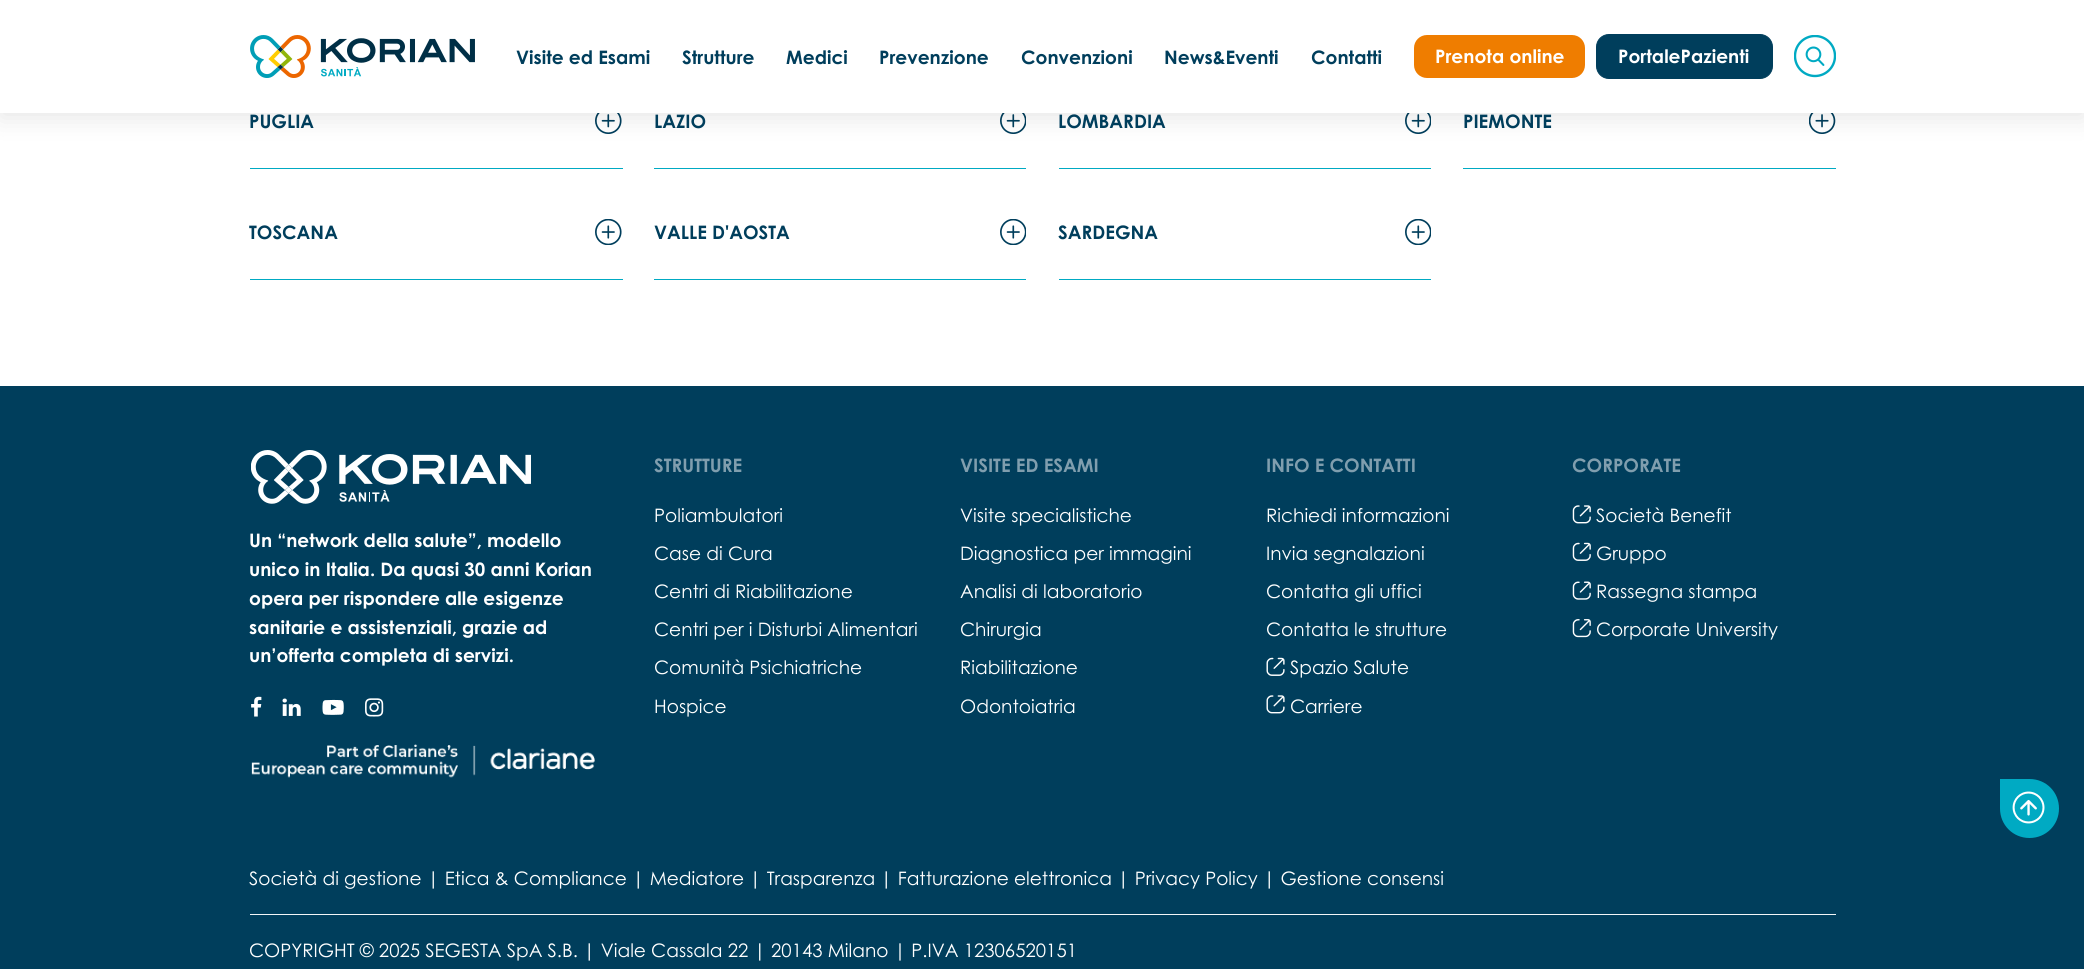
import math
import cairocffi as cairo

surface = cairo.ImageSurface(cairo.FORMAT_RGB24, 2084, 969)
cr = cairo.Context(surface)
options = cairo.FontOptions()
options.set_hint_metrics(cairo.HINT_METRICS_OFF)
options.set_hint_style(cairo.HINT_STYLE_NONE)
cr.set_font_options(options)
cr.set_miter_limit(4)


def use_color(code):
    cr.set_source_rgb(*(v / 255 for v in bytes.fromhex(code[-6:])))


def round_rect(x, y, w, h, r):
    cr.new_sub_path()
    for i, (u, v) in enumerate([(x + w - r, y + h - r), (x + r, y + h - r), (x + r, y + r), (x + w - r, y + r)]):
        cr.arc(u, v, r, i * math.pi / 2, (i + 1) * math.pi / 2)
    cr.close_path()


def shadow(x, y, w, h, r, blur, alpha):
    cr.push_group_with_content(cairo.CONTENT_ALPHA)
    cr.set_operator(cairo.OPERATOR_SOURCE)
    for i in range(15, -16, -2):
        e = blur * i / 6
        if min(w, h) + 2 * e > 0:
            cr.set_source_rgba(0, 0, 0, alpha * math.erfc((i - 1) / 8.5) / 2)
            round_rect(x - e, y - e, w + 2 * e, h + 2 * e, max(0, min(r + e + blur * .6, min(w, h) / 2 + e)))
            cr.fill()
    cr.mask(cr.pop_group())


def picture(path, x, y, w, h):
    cr.save()
    cr.set_source_surface(cairo.ImageSurface.create_from_png(path), x, y)
    cr.rectangle(x, y, w, h)
    cr.fill()
    cr.restore()


use_color("#ffffff")
cr.paint()
picture("img3.png", 595, 113, 27, 21)
picture("img5.png", 1000, 113, 26, 21)
picture("img5.png", 1405, 113, 26, 21)
picture("img7.png", 1809, 113, 27, 21)
use_color("#000000")
shadow(0, 5, 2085, 113, 0, 12.5, 0.1)
use_color("#ffffff")
cr.rectangle(0, 0, 2084, 113)
cr.fill()
picture("img1.png", 250, 35, 225, 43)
cr.select_font_face("Century Gothic", cairo.FONT_SLANT_NORMAL, cairo.FONT_WEIGHT_BOLD)
cr.set_font_size(18.6)
use_color("#003e5c")
cr.move_to(516, 64)
cr.show_text("Visite ed Esami")
cr.move_to(682, 64)
cr.show_text("Strutture")
cr.move_to(786, 64)
cr.show_text("Medici")
cr.move_to(879, 64)
cr.show_text("Prevenzione")
cr.move_to(1021, 64)
cr.show_text("Convenzioni")
cr.move_to(1164, 64)
cr.show_text("News&Eventi")
cr.move_to(1311, 64)
cr.show_text("Contatti")
use_color("#ef7d00")
round_rect(1414, 35, 171, 43, 13)
cr.fill()
use_color("#ffffff")
cr.move_to(1435, 63)
cr.show_text("Prenota online")
use_color("#003e5c")
round_rect(1596.5, 34.5, 176, 44, 12.5)
cr.fill_preserve()
cr.set_line_width(1)
cr.stroke()
use_color("#ffffff")
cr.move_to(1618, 63)
cr.show_text("PortalePazienti")
picture("img2.png", 1794, 35, 42, 43)
use_color("#00aac3")
cr.rectangle(250, 168, 373, 1)
cr.fill()
use_color("#003e5c")
cr.move_to(249, 128)
cr.show_text("PUGLIA")
use_color("#00aac3")
cr.rectangle(250, 279, 373, 1)
cr.fill()
use_color("#003e5c")
cr.move_to(249, 239)
cr.show_text("TOSCANA")
picture("img4.png", 595, 219, 27, 26)
use_color("#00aac3")
cr.rectangle(654, 168, 372, 1)
cr.fill()
use_color("#003e5c")
cr.move_to(654, 128)
cr.show_text("LAZIO")
use_color("#00aac3")
cr.rectangle(654, 279, 372, 1)
cr.fill()
use_color("#003e5c")
cr.move_to(654, 239)
cr.show_text("VALLE D'AOSTA")
picture("img6.png", 1000, 219, 26, 26)
use_color("#00aac3")
cr.rectangle(1059, 168, 372, 1)
cr.fill()
use_color("#003e5c")
cr.move_to(1058, 128)
cr.show_text("LOMBARDIA")
use_color("#00aac3")
cr.rectangle(1059, 279, 372, 1)
cr.fill()
use_color("#003e5c")
cr.move_to(1058, 239)
cr.show_text("SARDEGNA")
picture("img6.png", 1405, 219, 26, 26)
use_color("#00aac3")
cr.rectangle(1463, 168, 373, 1)
cr.fill()
use_color("#003e5c")
cr.move_to(1463, 128)
cr.show_text("PIEMONTE")
cr.rectangle(0, 386, 2084, 583)
cr.fill()
picture("img8.png", 251, 450, 280, 54)
use_color("#ffffff")
cr.move_to(249, 547)
cr.show_text("Un “network della salute”, modello")
cr.move_to(249, 576)
cr.show_text("unico in Italia. Da quasi 30 anni Korian")
cr.move_to(249, 605)
cr.show_text("opera per rispondere alle esigenze")
cr.move_to(249, 634)
cr.show_text("sanitarie e assistenziali, grazie ad")
cr.move_to(249, 662)
cr.show_text("un’offerta completa di servizi.")
picture("img9.png", 251, 696, 11, 21)
picture("img10.png", 282, 698, 19, 18)
picture("img11.png", 322, 699, 22, 16)
picture("img12.png", 365, 698, 19, 19)
picture("img13.png", 251, 744, 344, 34)
use_color("#809eae")
cr.move_to(654, 472)
cr.show_text("STRUTTURE")
cr.select_font_face("Century Gothic")
use_color("#ffffff")
cr.move_to(654, 522)
cr.show_text("Poliambulatori")
cr.move_to(654, 560)
cr.show_text("Case di Cura")
cr.move_to(654, 598)
cr.show_text("Centri di Riabilitazione")
cr.move_to(654, 636)
cr.show_text("Centri per i Disturbi Alimentari")
cr.move_to(654, 674)
cr.show_text("Comunità Psichiatriche")
cr.move_to(654, 713)
cr.show_text("Hospice")
cr.select_font_face("Century Gothic", cairo.FONT_SLANT_NORMAL, cairo.FONT_WEIGHT_BOLD)
use_color("#809eae")
cr.move_to(960, 472)
cr.show_text("VISITE ED ESAMI")
cr.select_font_face("Century Gothic")
use_color("#ffffff")
cr.move_to(960, 522)
cr.show_text("Visite specialistiche")
cr.move_to(960, 560)
cr.show_text("Diagnostica per immagini")
cr.move_to(960, 598)
cr.show_text("Analisi di laboratorio")
cr.move_to(960, 636)
cr.show_text("Chirurgia")
cr.move_to(960, 674)
cr.show_text("Riabilitazione")
cr.move_to(960, 713)
cr.show_text("Odontoiatria")
cr.select_font_face("Century Gothic", cairo.FONT_SLANT_NORMAL, cairo.FONT_WEIGHT_BOLD)
use_color("#809eae")
cr.move_to(1266, 472)
cr.show_text("INFO E CONTATTI")
cr.select_font_face("Century Gothic")
use_color("#ffffff")
cr.move_to(1266, 522)
cr.show_text("Richiedi informazioni")
cr.move_to(1266, 560)
cr.show_text("Invia segnalazioni")
cr.move_to(1266, 598)
cr.show_text("Contatta gli uffici")
cr.move_to(1266, 636)
cr.show_text("Contatta le strutture")
picture("img14.png", 1266, 657, 19, 19)
cr.move_to(1290, 674)
cr.show_text("Spazio Salute")
picture("img15.png", 1266, 695, 19, 19)
cr.move_to(1290, 713)
cr.show_text("Carriere")
cr.select_font_face("Century Gothic", cairo.FONT_SLANT_NORMAL, cairo.FONT_WEIGHT_BOLD)
use_color("#809eae")
cr.move_to(1572, 472)
cr.show_text("CORPORATE")
picture("img16.png", 1572, 505, 19, 19)
cr.select_font_face("Century Gothic")
use_color("#ffffff")
cr.move_to(1596, 522)
cr.show_text("Società Benefit")
picture("img17.png", 1572, 542, 19, 19)
cr.move_to(1596, 560)
cr.show_text("Gruppo")
picture("img18.png", 1572, 581, 19, 19)
cr.move_to(1596, 598)
cr.show_text("Rassegna stampa")
picture("img19.png", 1572, 619, 19, 19)
cr.move_to(1596, 636)
cr.show_text("Corporate University")
cr.move_to(249, 885)
cr.show_text("Società di gestione")
cr.move_to(427, 885)
cr.show_text("| Etica & Compliance")
cr.move_to(632, 885)
cr.show_text("| Mediatore")
cr.move_to(749, 885)
cr.show_text("| Trasparenza")
cr.move_to(880, 885)
cr.show_text("| Fatturazione elettronica")
cr.move_to(1117, 885)
cr.show_text("| Privacy Policy | Gestione consensi")
use_color("#f2f5f7")
cr.rectangle(250, 914, 1586, 1)
cr.fill()
use_color("#ffffff")
cr.move_to(249, 957)
cr.show_text("COPYRIGHT © 2025 SEGESTA SpA S.B. | Viale Cassala 22 | 20143 Milano | P.IVA 12306520151")
use_color("#00aac3")
cr.new_path()
cr.move_to(2000, 779)
cr.line_to(2029.5, 779)
cr.curve_to(2046, 779, 2059, 792, 2059, 808.5)
cr.curve_to(2059, 825, 2046, 838, 2029.5, 838)
cr.curve_to(2013, 838, 2000, 825, 2000, 808.5)
cr.close_path()
cr.fill()
picture("img20.png", 2012, 791, 33, 33)
surface.write_to_png("result.png")
